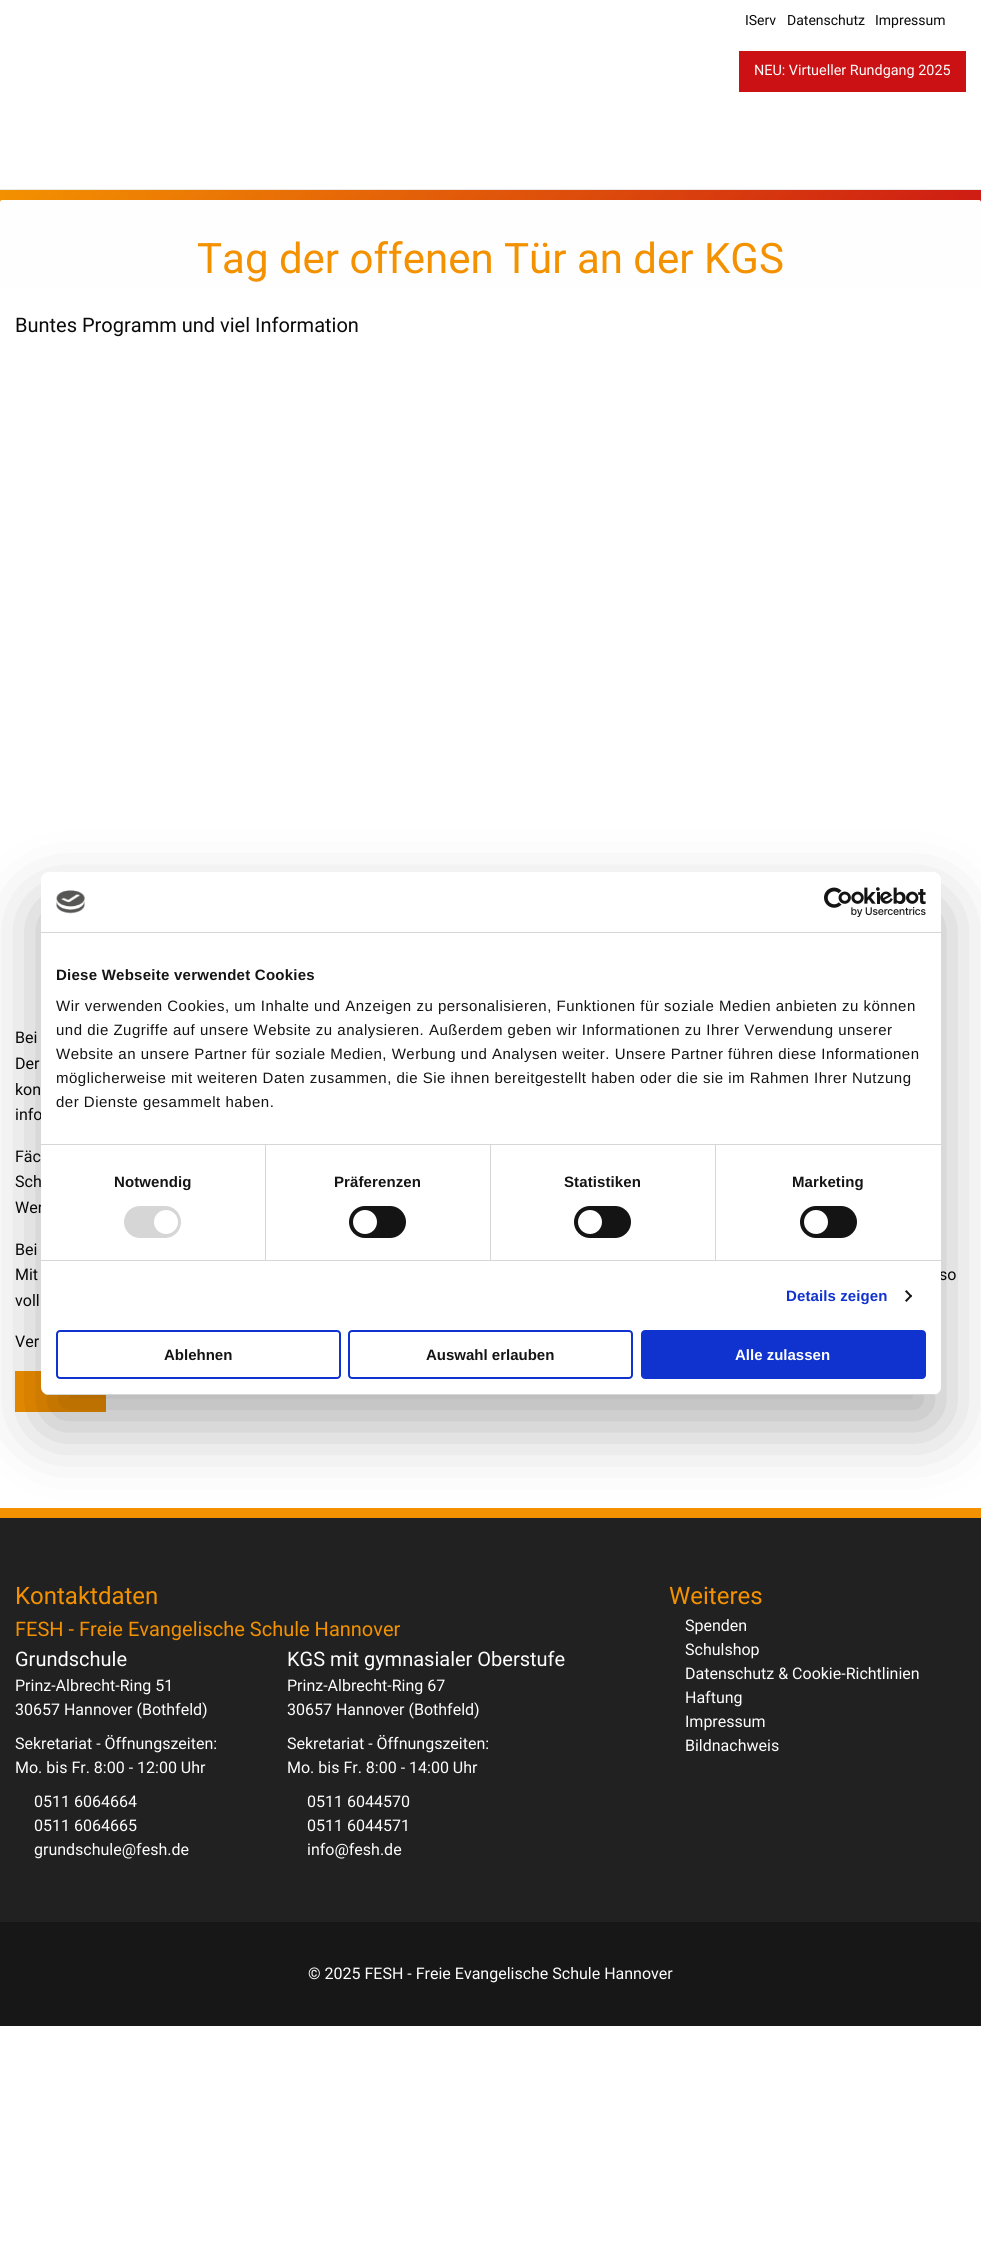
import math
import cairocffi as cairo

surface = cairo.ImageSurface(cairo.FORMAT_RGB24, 981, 2267)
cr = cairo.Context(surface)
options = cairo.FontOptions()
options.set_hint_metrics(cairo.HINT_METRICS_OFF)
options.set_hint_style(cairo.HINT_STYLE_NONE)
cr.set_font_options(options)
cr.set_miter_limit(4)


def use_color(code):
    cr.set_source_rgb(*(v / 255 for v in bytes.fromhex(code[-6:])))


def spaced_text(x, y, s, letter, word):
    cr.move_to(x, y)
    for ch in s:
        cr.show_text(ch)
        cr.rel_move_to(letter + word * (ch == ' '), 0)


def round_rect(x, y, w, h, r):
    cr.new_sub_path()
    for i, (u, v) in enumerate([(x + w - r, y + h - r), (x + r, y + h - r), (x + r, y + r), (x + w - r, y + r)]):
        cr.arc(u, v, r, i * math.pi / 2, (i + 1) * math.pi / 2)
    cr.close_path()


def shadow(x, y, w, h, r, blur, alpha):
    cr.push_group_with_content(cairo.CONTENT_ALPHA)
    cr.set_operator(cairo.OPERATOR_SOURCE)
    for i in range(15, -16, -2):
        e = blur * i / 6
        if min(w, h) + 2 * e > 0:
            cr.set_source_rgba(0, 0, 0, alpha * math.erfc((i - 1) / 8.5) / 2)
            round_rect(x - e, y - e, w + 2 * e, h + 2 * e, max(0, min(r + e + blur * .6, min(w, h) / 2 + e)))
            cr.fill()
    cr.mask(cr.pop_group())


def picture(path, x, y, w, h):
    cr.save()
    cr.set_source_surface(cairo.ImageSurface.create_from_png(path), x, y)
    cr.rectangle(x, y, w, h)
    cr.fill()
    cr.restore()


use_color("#ffffff")
cr.paint()
use_color("#eaeaea")
cr.rectangle(0, 189, 981, 1)
cr.fill()
cr.select_font_face("Roboto")
cr.set_font_size(14)
use_color("#0a0a0a")
cr.move_to(745, 25)
cr.show_text("IServ")
cr.move_to(787, 25)
cr.show_text("Datenschutz")
cr.move_to(875, 25)
cr.show_text("Impressum")
use_color("#cb1114")
cr.rectangle(739, 51, 227, 41)
cr.fill()
cr.set_font_size(14.4)
use_color("#fefefe")
cr.move_to(754, 75)
cr.show_text("NEU: Virtueller Rundgang 2025")
gradient = cairo.LinearGradient(761, 510, 220, -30)
gradient.add_color_stop_rgba(0, 0.796, 0.071, 0.082, 1)
gradient.add_color_stop_rgba(1, 0.953, 0.569, 0, 1)
cr.set_source(gradient)
cr.rectangle(0, 190, 981, 12)
cr.fill()
use_color("#fefefe")
cr.new_path()
cr.move_to(2, 200)
cr.line_to(979, 200)
cr.curve_to(980, 200, 981, 201, 981, 202)
cr.line_to(981, 289)
cr.line_to(0, 289)
cr.line_to(0, 202)
cr.curve_to(0, 201, 1, 200, 2, 200)
cr.close_path()
cr.fill()
cr.set_font_size(42)
use_color("#f39100")
cr.move_to(197, 273)
cr.show_text("Tag der offenen Tür an der KGS")
cr.set_font_size(20)
use_color("#0a0a0a")
cr.move_to(15, 332)
cr.show_text("Buntes Programm und viel Information")
cr.set_font_size(16)
cr.move_to(15, 1043)
cr.show_text("Bei")
cr.move_to(15, 1069)
cr.show_text("Der")
cr.move_to(15, 1095)
cr.show_text("kon")
cr.move_to(15, 1120)
cr.show_text("info")
cr.move_to(15, 1162)
cr.show_text("Fäc")
cr.move_to(15, 1187)
cr.show_text("Sch")
cr.move_to(15, 1213)
cr.show_text("Wer")
cr.move_to(15, 1255)
cr.show_text("Bei")
cr.move_to(15, 1280)
cr.show_text("Mit")
cr.move_to(939, 1280)
cr.show_text("so")
cr.move_to(15, 1306)
cr.show_text("voll")
cr.move_to(15, 1347)
cr.show_text("Ver")
use_color("#f39100")
cr.rectangle(15, 1371, 91, 41)
cr.fill()
use_color("#212121")
cr.rectangle(0, 1518, 981, 404)
cr.fill()
use_color("#f39100")
cr.rectangle(0, 1508, 981, 10)
cr.fill()
cr.set_font_size(24)
cr.move_to(15, 1604)
cr.show_text("Kontaktdaten")
cr.set_font_size(20)
cr.move_to(15, 1636)
cr.show_text("FESH - Freie Evangelische Schule Hannover")
use_color("#fefefe")
cr.move_to(15, 1666)
cr.show_text("Grundschule")
cr.set_font_size(16)
cr.move_to(15, 1691)
cr.show_text("Prinz-Albrecht-Ring 51")
cr.move_to(15, 1715)
cr.show_text("30657 Hannover (Bothfeld)")
cr.move_to(15, 1749)
cr.show_text("Sekretariat - Öffnungszeiten:")
cr.move_to(15, 1773)
cr.show_text("Mo. bis Fr. 8:00 - 12:00 Uhr")
cr.move_to(34, 1807)
cr.show_text("0511 6064664")
cr.move_to(34, 1831)
cr.show_text("0511 6064665")
cr.move_to(34, 1855)
cr.show_text("grundschule@fesh.de")
cr.set_font_size(20)
cr.move_to(287, 1666)
cr.show_text("KGS mit gymnasialer Oberstufe")
cr.set_font_size(16)
cr.move_to(287, 1691)
cr.show_text("Prinz-Albrecht-Ring 67")
cr.move_to(287, 1715)
cr.show_text("30657 Hannover (Bothfeld)")
cr.move_to(287, 1749)
cr.show_text("Sekretariat - Öffnungszeiten:")
cr.move_to(287, 1773)
cr.show_text("Mo. bis Fr. 8:00 - 14:00 Uhr")
cr.move_to(307, 1807)
cr.show_text("0511 6044570")
cr.move_to(307, 1831)
cr.show_text("0511 6044571")
cr.move_to(307, 1855)
cr.show_text("info@fesh.de")
cr.set_font_size(24)
use_color("#f39100")
cr.move_to(669, 1604)
cr.show_text("Weiteres")
cr.set_font_size(16)
use_color("#fefefe")
cr.move_to(685, 1631)
cr.show_text("Spenden")
cr.move_to(685, 1655)
cr.show_text("Schulshop")
cr.move_to(685, 1679)
cr.show_text("Datenschutz & Cookie-Richtlinien")
cr.move_to(685, 1703)
cr.show_text("Haftung")
cr.move_to(685, 1727)
cr.show_text("Impressum")
cr.move_to(685, 1751)
cr.show_text("Bildnachweis")
use_color("#171717")
cr.rectangle(0, 1922, 981, 104)
cr.fill()
use_color("#fefefe")
cr.move_to(308, 1979)
cr.show_text("© 2025 FESH - Freie Evangelische Schule Hannover")
use_color("#000000")
shadow(41, 904, 900, 523, 8, 34, 0.3)
use_color("#ffffff")
round_rect(41, 872, 900, 523, 8)
cr.fill()
use_color("#d6d6d6")
cr.rectangle(41, 932, 900, 1)
cr.fill()
picture("img1.png", 56, 890, 29, 24)
picture("img2.png", 824, 887, 102, 30)
cr.rectangle(41, 1144, 900, 1)
cr.fill()
cr.select_font_face("Liberation Sans", cairo.FONT_SLANT_NORMAL, cairo.FONT_WEIGHT_BOLD)
cr.set_font_size(15)
use_color("#141414")
spaced_text(56, 980, "Diese Webseite verwendet Cookies", 0.25, 0)
cr.select_font_face("Liberation Sans")
spaced_text(56, 1011, "Wir verwenden Cookies, um Inhalte und Anzeigen zu personalisieren, Funktionen für soziale Medien anbieten zu können", 0.5, 0)
spaced_text(56, 1035, "und die Zugriffe auf unsere Website zu analysieren. Außerdem geben wir Informationen zu Ihrer Verwendung unserer", 0.5, 0)
spaced_text(56, 1059, "Website an unsere Partner für soziale Medien, Werbung und Analysen weiter. Unsere Partner führen diese Informationen", 0.5, 0)
spaced_text(56, 1083, "möglicherweise mit weiteren Daten zusammen, die Sie ihnen bereitgestellt haben oder die sie im Rahmen Ihrer Nutzung", 0.5, 0)
spaced_text(56, 1107, "der Dienste gesammelt haben.", 0.5, 0)
use_color("#d6d6d6")
cr.rectangle(41, 1260, 900, 1)
cr.fill()
cr.rectangle(265, 1145, 1, 115)
cr.fill()
cr.select_font_face("Liberation Sans", cairo.FONT_SLANT_NORMAL, cairo.FONT_WEIGHT_BOLD)
use_color("#141414")
spaced_text(114, 1187, "Notwendig", 0.1, 0)
use_color("#d6d6d6")
round_rect(124, 1206, 57, 32, 16)
cr.fill()
use_color("#ffffff")
cr.arc(166, 1222, 12, 0, 2 * math.pi)
cr.fill()
use_color("#d6d6d6")
cr.rectangle(490, 1145, 1, 115)
cr.fill()
use_color("#141414")
spaced_text(334, 1187, "Präferenzen", 0.1, 0)
round_rect(349, 1206, 57, 32, 16)
cr.fill()
use_color("#ffffff")
cr.arc(365, 1222, 12, 0, 2 * math.pi)
cr.fill()
use_color("#d6d6d6")
cr.rectangle(715, 1145, 1, 115)
cr.fill()
use_color("#141414")
spaced_text(564, 1187, "Statistiken", 0.1, 0)
round_rect(574, 1206, 57, 32, 16)
cr.fill()
use_color("#ffffff")
cr.arc(590, 1222, 12, 0, 2 * math.pi)
cr.fill()
use_color("#141414")
spaced_text(792, 1187, "Marketing", 0.1, 0)
round_rect(800, 1206, 57, 32, 16)
cr.fill()
use_color("#ffffff")
cr.arc(816, 1222, 12, 0, 2 * math.pi)
cr.fill()
use_color("#1032cf")
spaced_text(786, 1301, "Details zeigen", 0.1, 0)
use_color("#141414")
cr.new_path()
cr.move_to(906.5, 1290)
cr.line_to(912, 1296)
cr.line_to(911, 1297.5)
cr.line_to(905, 1291.5)
cr.close_path()
cr.fill()
cr.new_path()
cr.move_to(911, 1294.5)
cr.line_to(912, 1296)
cr.line_to(906.5, 1302)
cr.line_to(905, 1300.5)
cr.close_path()
cr.fill()
cr.save()
round_rect(41, 872, 900, 523, 8)
cr.clip()
use_color("#d6d6d6")
cr.rectangle(41, 1394, 900, 1)
cr.fill()
cr.restore()
round_rect(57, 1331, 283, 47, 3)
use_color("#1032cf")
cr.stroke()
use_color("#141414")
cr.move_to(164, 1360)
cr.show_text("Ablehnen")
round_rect(349, 1331, 283, 47, 3)
use_color("#1032cf")
cr.stroke()
use_color("#141414")
cr.move_to(426, 1360)
cr.show_text("Auswahl erlauben")
use_color("#1032cf")
round_rect(642, 1331, 283, 47, 3)
cr.fill_preserve()
cr.stroke()
use_color("#fefefe")
cr.move_to(735, 1360)
cr.show_text("Alle zulassen")
surface.write_to_png("result.png")
